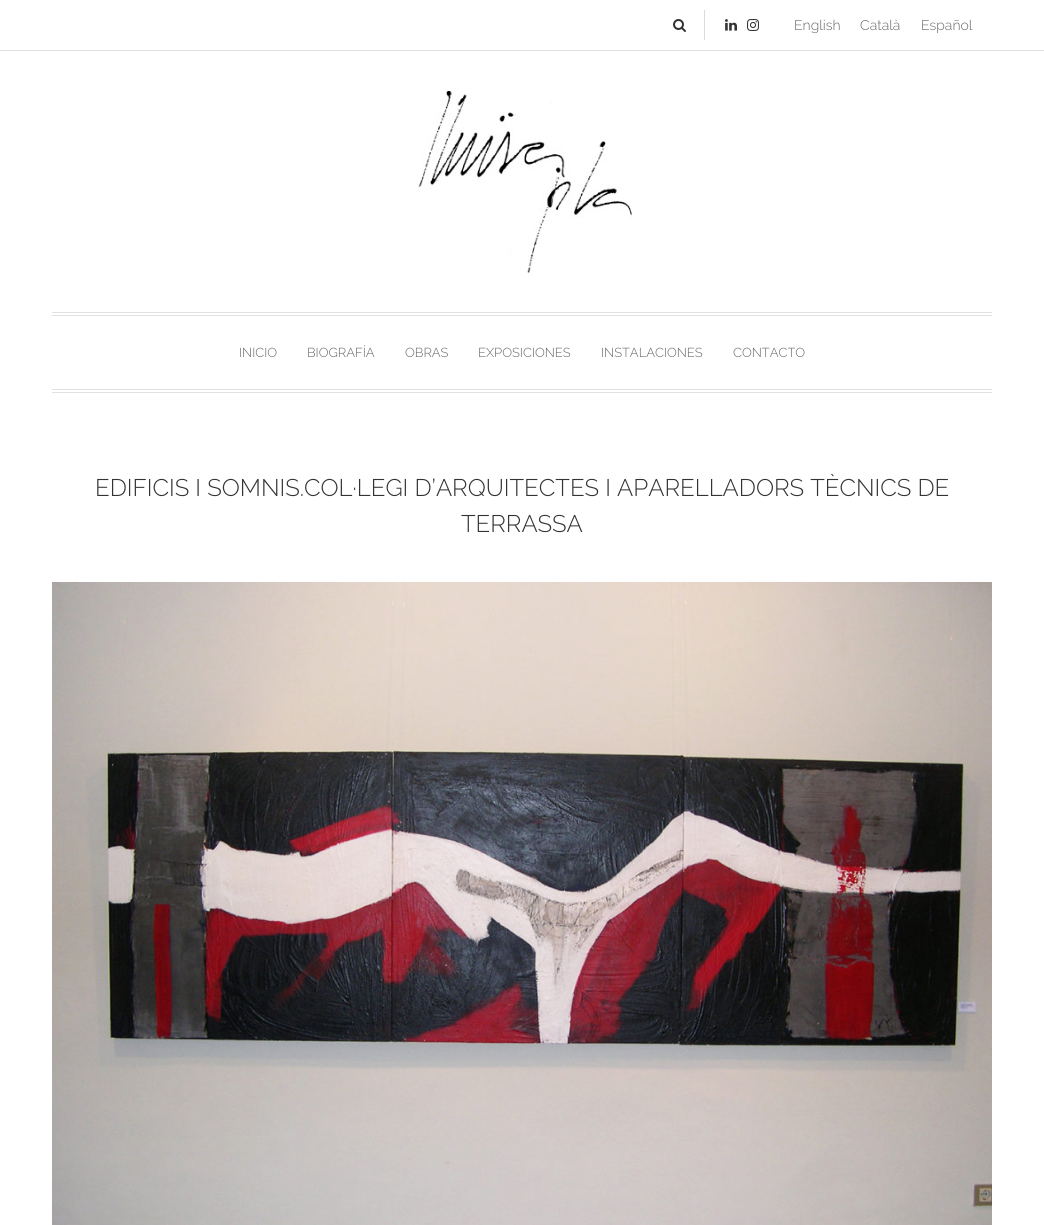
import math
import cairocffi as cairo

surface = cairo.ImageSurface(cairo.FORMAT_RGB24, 1044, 1225)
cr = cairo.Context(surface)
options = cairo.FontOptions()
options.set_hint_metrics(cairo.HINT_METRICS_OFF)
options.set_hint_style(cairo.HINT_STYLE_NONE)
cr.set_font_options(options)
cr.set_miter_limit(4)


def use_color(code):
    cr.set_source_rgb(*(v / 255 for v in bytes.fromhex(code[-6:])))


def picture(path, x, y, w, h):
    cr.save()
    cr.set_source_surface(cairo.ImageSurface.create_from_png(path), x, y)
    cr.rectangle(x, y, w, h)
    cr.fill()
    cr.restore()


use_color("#ffffff")
cr.paint()
use_color("#e1e1e1")
cr.rectangle(0, 50, 1044, 1)
cr.fill()
picture("img1.png", 673, 19, 13, 13)
use_color("#dbdbdb")
cr.rectangle(704, 10, 1, 30)
cr.fill()
picture("img2.png", 725, 19, 12, 12)
picture("img3.png", 747, 19, 12, 12)
cr.select_font_face("Raleway Light")
cr.set_font_size(14)
use_color("#666666")
cr.move_to(794, 30)
cr.show_text("English")
cr.move_to(860, 30)
cr.show_text("Català")
cr.move_to(921, 30)
cr.show_text("Español")
picture("img4.png", 418, 91, 214, 182)
use_color("#e1e1e1")
cr.rectangle(52, 315, 940, 1)
cr.fill()
cr.rectangle(52, 389, 940, 1)
cr.fill()
cr.rectangle(52, 312, 940, 1)
cr.fill()
cr.set_font_size(13)
use_color("#666666")
cr.move_to(239, 357)
cr.show_text("INICIO")
cr.move_to(307, 357)
cr.show_text("BIOGRAFÍA")
cr.move_to(405, 357)
cr.show_text("OBRAS")
cr.move_to(478, 357)
cr.show_text("EXPOSICIONES")
cr.move_to(601, 357)
cr.show_text("INSTALACIONES")
cr.move_to(733, 357)
cr.show_text("CONTACTO")
use_color("#e1e1e1")
cr.rectangle(52, 392, 940, 1)
cr.fill()
cr.set_font_size(24)
use_color("#333333")
cr.move_to(95, 496)
cr.show_text("EDIFICIS I SOMNIS.COL·LEGI D’ARQUITECTES I APARELLADORS TÈCNICS DE")
cr.move_to(461, 532)
cr.show_text("TERRASSA")
picture("img5.png", 52, 582, 940, 643)
surface.write_to_png("result.png")
